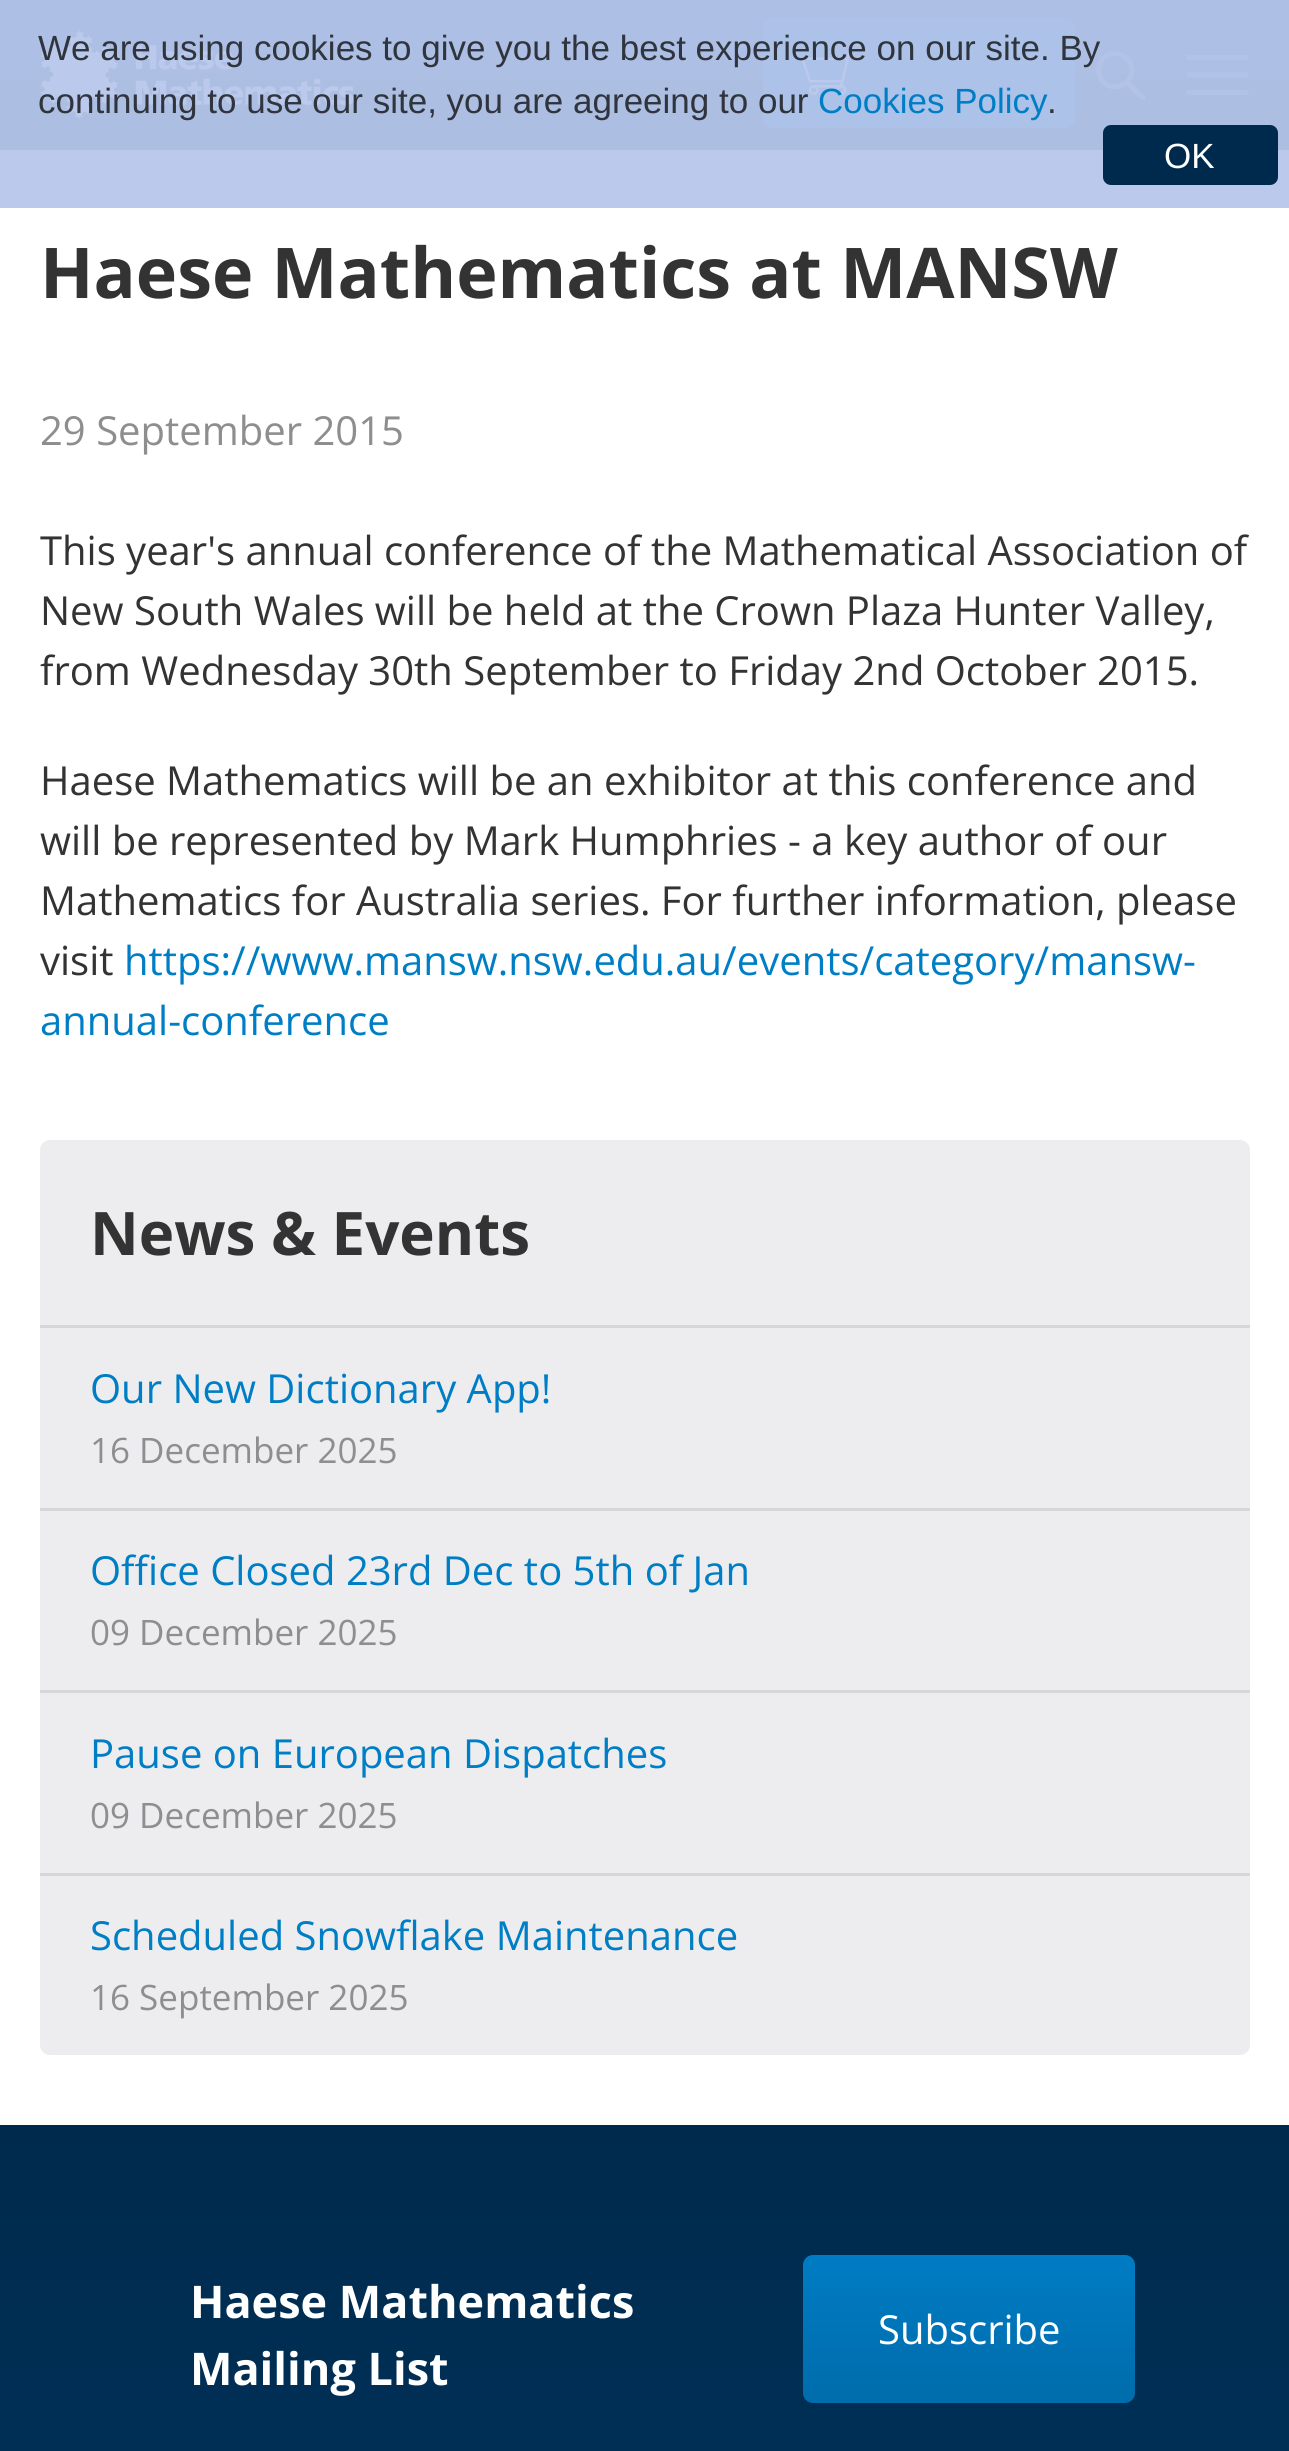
import math
import cairocffi as cairo

surface = cairo.ImageSurface(cairo.FORMAT_RGB24, 1289, 2451)
cr = cairo.Context(surface)
options = cairo.FontOptions()
options.set_hint_metrics(cairo.HINT_METRICS_OFF)
options.set_hint_style(cairo.HINT_STYLE_NONE)
cr.set_font_options(options)
cr.set_miter_limit(4)


def use_color(code):
    cr.set_source_rgb(*(v / 255 for v in bytes.fromhex(code[-6:])))


def round_rect(x, y, w, h, r):
    cr.new_sub_path()
    for i, (u, v) in enumerate([(x + w - r, y + h - r), (x + r, y + h - r), (x + r, y + r), (x + w - r, y + r)]):
        cr.arc(u, v, r, i * math.pi / 2, (i + 1) * math.pi / 2)
    cr.close_path()


def picture(path, x, y, w, h):
    cr.save()
    cr.set_source_surface(cairo.ImageSurface.create_from_png(path), x, y)
    cr.rectangle(x, y, w, h)
    cr.fill()
    cr.restore()


use_color("#ffffff")
cr.paint()
gradient = cairo.LinearGradient(645, 0, 645, 150)
gradient.add_color_stop_rgba(0, 0.678, 0.749, 0.894, 1)
gradient.add_color_stop_rgba(1, 0.678, 0.745, 0.89, 1)
cr.set_source(gradient)
cr.rectangle(0, 0, 1289, 150)
cr.fill()
picture("img1.png", 40, 30, 315, 89)
gradient = cairo.LinearGradient(919, 17, 919, 128)
gradient.add_color_stop_rgba(0, 0.678, 0.761, 0.914, 1)
gradient.add_color_stop_rgba(1, 0.678, 0.761, 0.91, 1)
cr.set_source(gradient)
round_rect(763, 18, 312, 110, 10)
cr.fill()
picture("img2.png", 801, 43, 59, 52)
picture("img4.png", 1096, 51, 49, 49)
cr.select_font_face("Liberation Sans")
cr.set_font_size(35)
use_color("#2f343d")
cr.move_to(38, 60)
cr.show_text("We are using cookies to give you the best experience on our site. By")
cr.move_to(38, 113)
cr.show_text("continuing to use our site, you are agreeing to our")
use_color("#007ec5")
cr.move_to(818, 113)
cr.show_text("Cookies Policy")
use_color("#2f343d")
cr.move_to(1047, 113)
cr.show_text(".")
use_color("#bac9ec")
cr.rectangle(0, 150, 1289, 58)
cr.fill()
use_color("#002a4d")
round_rect(1103, 125, 175, 60, 8)
cr.fill()
use_color("#ffffff")
cr.move_to(1164, 168)
cr.show_text("OK")
picture("img3.png", 1186, 55, 63, 40)
cr.select_font_face("Open Sans", cairo.FONT_SLANT_NORMAL, cairo.FONT_WEIGHT_BOLD)
cr.set_font_size(70)
use_color("#333333")
cr.move_to(40, 298)
cr.show_text("Haese Mathematics at MANSW")
cr.select_font_face("Open Sans")
cr.set_font_size(40)
use_color("#8e8e90")
cr.move_to(40, 445)
cr.show_text("29 September 2015")
use_color("#333333")
cr.move_to(40, 565)
cr.show_text("This year's annual conference of the Mathematical Association of")
cr.move_to(40, 625)
cr.show_text("New South Wales will be held at the Crown Plaza Hunter Valley,")
cr.move_to(40, 685)
cr.show_text("from Wednesday 30th September to Friday 2nd October 2015.")
cr.move_to(40, 795)
cr.show_text("Haese Mathematics will be an exhibitor at this conference and")
cr.move_to(40, 855)
cr.show_text("will be represented by Mark Humphries - a key author of our")
cr.move_to(40, 915)
cr.show_text("Mathematics for Australia series. For further information, please")
cr.move_to(40, 975)
cr.show_text("visit")
use_color("#007ec5")
cr.move_to(124, 975)
cr.show_text("https://www.mansw.nsw.edu.au/events/category/mansw-")
cr.move_to(40, 1035)
cr.show_text("annual-conference")
use_color("#ededf0")
round_rect(40, 1140, 1210, 915, 10)
cr.fill()
cr.select_font_face("Open Sans", cairo.FONT_SLANT_NORMAL, cairo.FONT_WEIGHT_BOLD)
cr.set_font_size(60)
use_color("#333333")
cr.move_to(90, 1255)
cr.show_text("News & Events")
use_color("#d7d7d9")
cr.rectangle(40, 1325, 1210, 3)
cr.fill()
cr.select_font_face("Open Sans")
cr.set_font_size(40)
use_color("#007ec5")
cr.move_to(90, 1403)
cr.show_text("Our New Dictionary App!")
cr.set_font_size(35)
use_color("#8e8e90")
cr.move_to(90, 1463)
cr.show_text("16 December 2025")
use_color("#d7d7d9")
cr.rectangle(40, 1508, 1210, 3)
cr.fill()
cr.set_font_size(40)
use_color("#007ec5")
cr.move_to(90, 1585)
cr.show_text("Office Closed 23rd Dec to 5th of Jan")
cr.set_font_size(35)
use_color("#8e8e90")
cr.move_to(90, 1645)
cr.show_text("09 December 2025")
use_color("#d7d7d9")
cr.rectangle(40, 1690, 1210, 3)
cr.fill()
cr.set_font_size(40)
use_color("#007ec5")
cr.move_to(90, 1768)
cr.show_text("Pause on European Dispatches")
cr.set_font_size(35)
use_color("#8e8e90")
cr.move_to(90, 1828)
cr.show_text("09 December 2025")
use_color("#d7d7d9")
cr.rectangle(40, 1873, 1210, 3)
cr.fill()
cr.set_font_size(40)
use_color("#007ec5")
cr.move_to(90, 1950)
cr.show_text("Scheduled Snowflake Maintenance")
cr.set_font_size(35)
use_color("#8e8e90")
cr.move_to(90, 2010)
cr.show_text("16 September 2025")
gradient = cairo.LinearGradient(645, 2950, 645, 2125)
gradient.add_color_stop_rgba(0, 0, 0.216, 0.388, 1)
gradient.add_color_stop_rgba(1, 0, 0.165, 0.302, 1)
cr.set_source(gradient)
cr.rectangle(0, 2125, 1289, 326)
cr.fill()
cr.select_font_face("Open Sans", cairo.FONT_SLANT_NORMAL, cairo.FONT_WEIGHT_BOLD)
cr.set_font_size(45)
use_color("#ffffff")
cr.move_to(190, 2318)
cr.show_text("Haese Mathematics")
cr.move_to(190, 2385)
cr.show_text("Mailing List")
gradient = cairo.LinearGradient(969, 2255, 969, 2403)
gradient.add_color_stop_rgba(0, 0, 0.486, 0.769, 1)
gradient.add_color_stop_rgba(1, 0, 0.424, 0.671, 1)
cr.set_source(gradient)
round_rect(803, 2255, 332, 148, 10)
cr.fill()
cr.select_font_face("Open Sans")
cr.set_font_size(40)
use_color("#ffffff")
cr.move_to(878, 2344)
cr.show_text("Subscribe")
surface.write_to_png("result.png")
